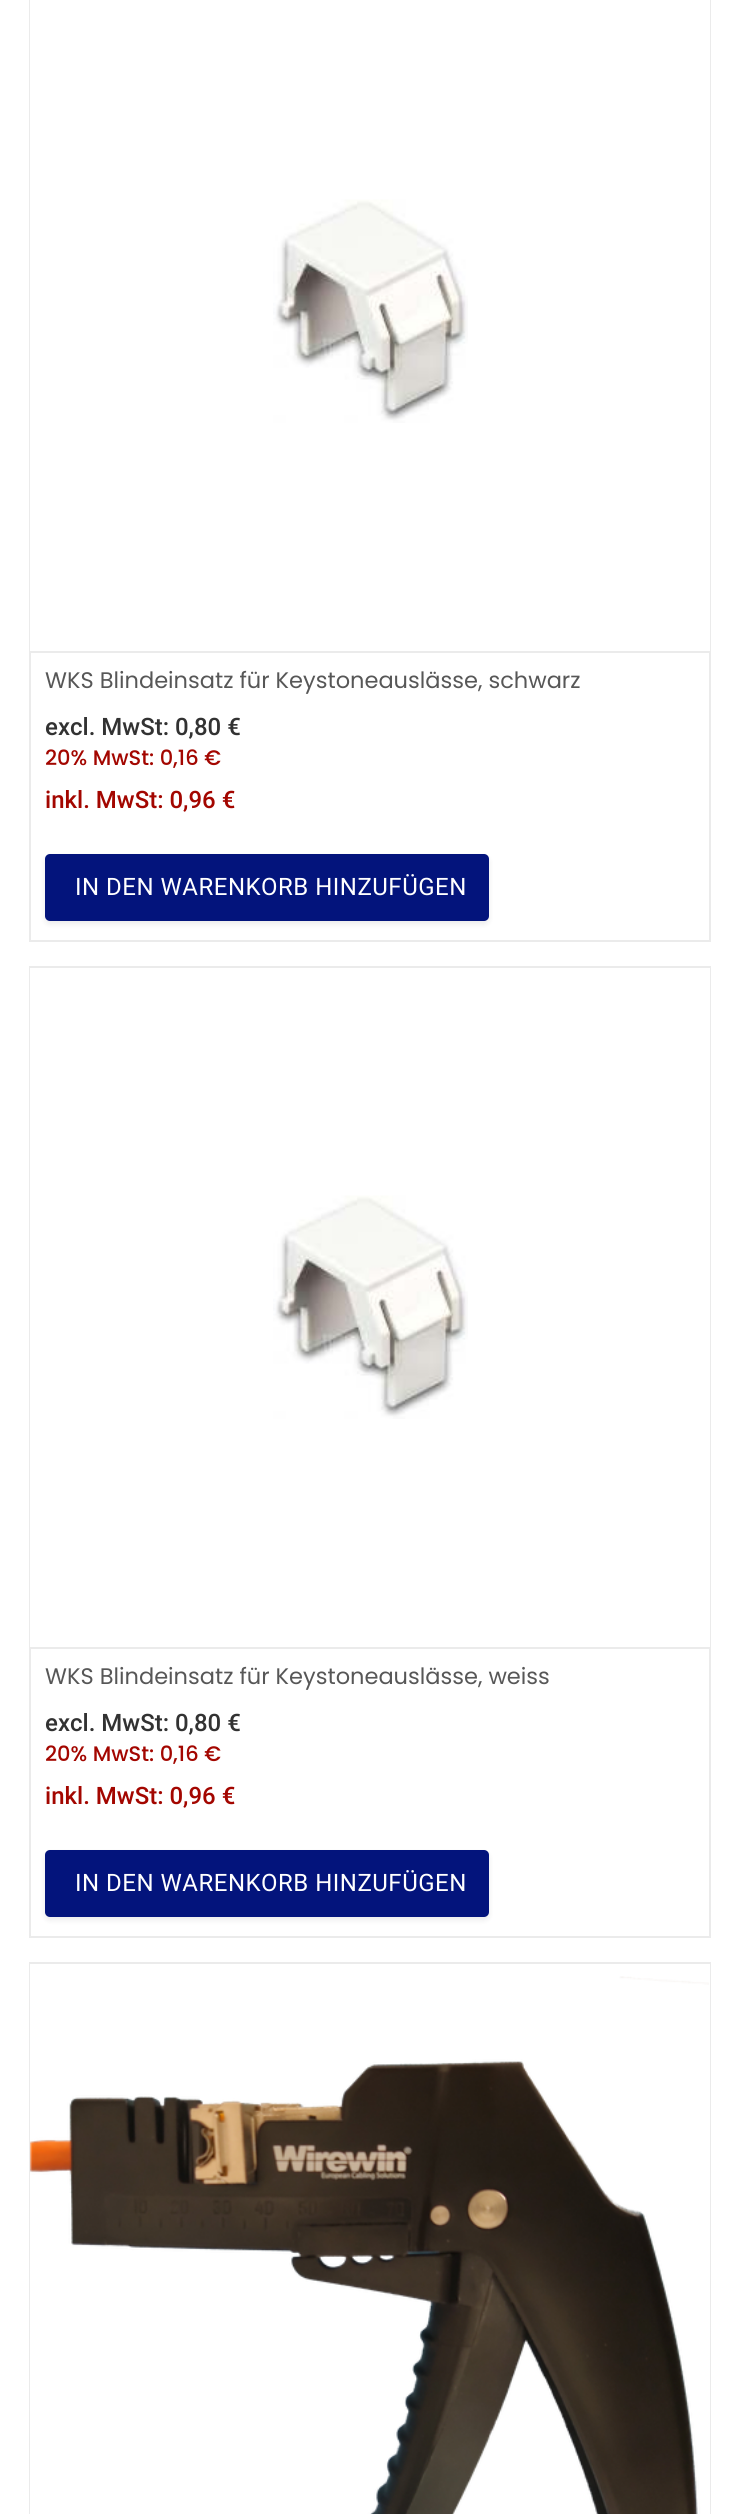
import math
import cairocffi as cairo

surface = cairo.ImageSurface(cairo.FORMAT_RGB24, 739, 2514)
cr = cairo.Context(surface)
options = cairo.FontOptions()
options.set_hint_metrics(cairo.HINT_METRICS_OFF)
options.set_hint_style(cairo.HINT_STYLE_NONE)
cr.set_font_options(options)
cr.set_miter_limit(4)


def use_color(code):
    cr.set_source_rgb(*(v / 255 for v in bytes.fromhex(code[-6:])))


def spaced_text(x, y, s, letter, word):
    cr.move_to(x, y)
    for ch in s:
        cr.show_text(ch)
        cr.rel_move_to(letter + word * (ch == ' '), 0)


def round_rect(x, y, w, h, r):
    cr.new_sub_path()
    for i, (u, v) in enumerate([(x + w - r, y + h - r), (x + r, y + h - r), (x + r, y + r), (x + w - r, y + r)]):
        cr.arc(u, v, r, i * math.pi / 2, (i + 1) * math.pi / 2)
    cr.close_path()


def shadow(x, y, w, h, r, blur, alpha):
    cr.push_group_with_content(cairo.CONTENT_ALPHA)
    cr.set_operator(cairo.OPERATOR_SOURCE)
    for i in range(15, -16, -2):
        e = blur * i / 6
        if min(w, h) + 2 * e > 0:
            cr.set_source_rgba(0, 0, 0, alpha * math.erfc((i - 1) / 8.5) / 2)
            round_rect(x - e, y - e, w + 2 * e, h + 2 * e, max(0, min(r + e + blur * .6, min(w, h) / 2 + e)))
            cr.fill()
    cr.mask(cr.pop_group())


def picture(path, x, y, w, h):
    cr.save()
    cr.set_source_surface(cairo.ImageSurface.create_from_png(path), x, y)
    cr.rectangle(x, y, w, h)
    cr.fill()
    cr.restore()


use_color("#ffffff")
cr.paint()
cr.rectangle(30, -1, 680, 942)
use_color("#ebebeb")
cr.stroke()
use_color("#ffffff")
cr.rectangle(30, 0, 680, 651)
cr.fill()
picture("img1.png", 273, 199, 195, 224)
use_color("#ebebeb")
cr.rectangle(30, 651, 680, 2)
cr.fill()
cr.select_font_face("Poppins")
cr.set_font_size(22.5)
use_color("#575757")
cr.move_to(45, 688)
cr.show_text("WKS Blindeinsatz für Keystoneauslässe, schwarz")
cr.select_font_face("Roboto Medium")
cr.set_font_size(24)
use_color("#323232")
cr.move_to(45, 735)
cr.show_text("excl. MwSt: 0,80 €")
cr.select_font_face("Poppins Medium")
cr.set_font_size(21)
use_color("#a30600")
cr.move_to(45, 765)
cr.show_text("20% MwSt: 0,16 €")
cr.select_font_face("Roboto Medium")
cr.set_font_size(24)
cr.move_to(45, 808)
cr.show_text("inkl. MwSt: 0,96 €")
use_color("#000000")
shadow(45, 857, 444, 67, 5, 3, 0.08)
use_color("#03147c")
round_rect(45, 854, 444, 67, 5)
cr.fill()
cr.select_font_face("Roboto")
use_color("#ffffff")
spaced_text(75, 895, "IN DEN WARENKORB HINZUFÜGEN", 0.5, 0)
cr.rectangle(30, 967, 680, 970)
use_color("#ebebeb")
cr.stroke()
use_color("#ffffff")
cr.rectangle(30, 968, 680, 679)
cr.fill()
picture("img1.png", 273, 1195, 195, 224)
use_color("#ebebeb")
cr.rectangle(30, 1647, 680, 2)
cr.fill()
cr.select_font_face("Poppins")
cr.set_font_size(22.5)
use_color("#575757")
cr.move_to(45, 1684)
cr.show_text("WKS Blindeinsatz für Keystoneauslässe, weiss")
cr.select_font_face("Roboto Medium")
cr.set_font_size(24)
use_color("#323232")
cr.move_to(45, 1731)
cr.show_text("excl. MwSt: 0,80 €")
cr.select_font_face("Poppins Medium")
cr.set_font_size(21)
use_color("#a30600")
cr.move_to(45, 1761)
cr.show_text("20% MwSt: 0,16 €")
cr.select_font_face("Roboto Medium")
cr.set_font_size(24)
cr.move_to(45, 1804)
cr.show_text("inkl. MwSt: 0,96 €")
use_color("#000000")
shadow(45, 1853, 444, 67, 5, 3, 0.08)
use_color("#03147c")
round_rect(45, 1850, 444, 67, 5)
cr.fill()
cr.select_font_face("Roboto")
use_color("#ffffff")
spaced_text(75, 1891, "IN DEN WARENKORB HINZUFÜGEN", 0.5, 0)
cr.rectangle(30, 1963, 680, 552)
use_color("#ebebeb")
cr.stroke()
use_color("#ffffff")
cr.rectangle(30, 1964, 680, 550)
cr.fill()
picture("img2.png", 30, 1976, 679, 538)
surface.write_to_png("result.png")
